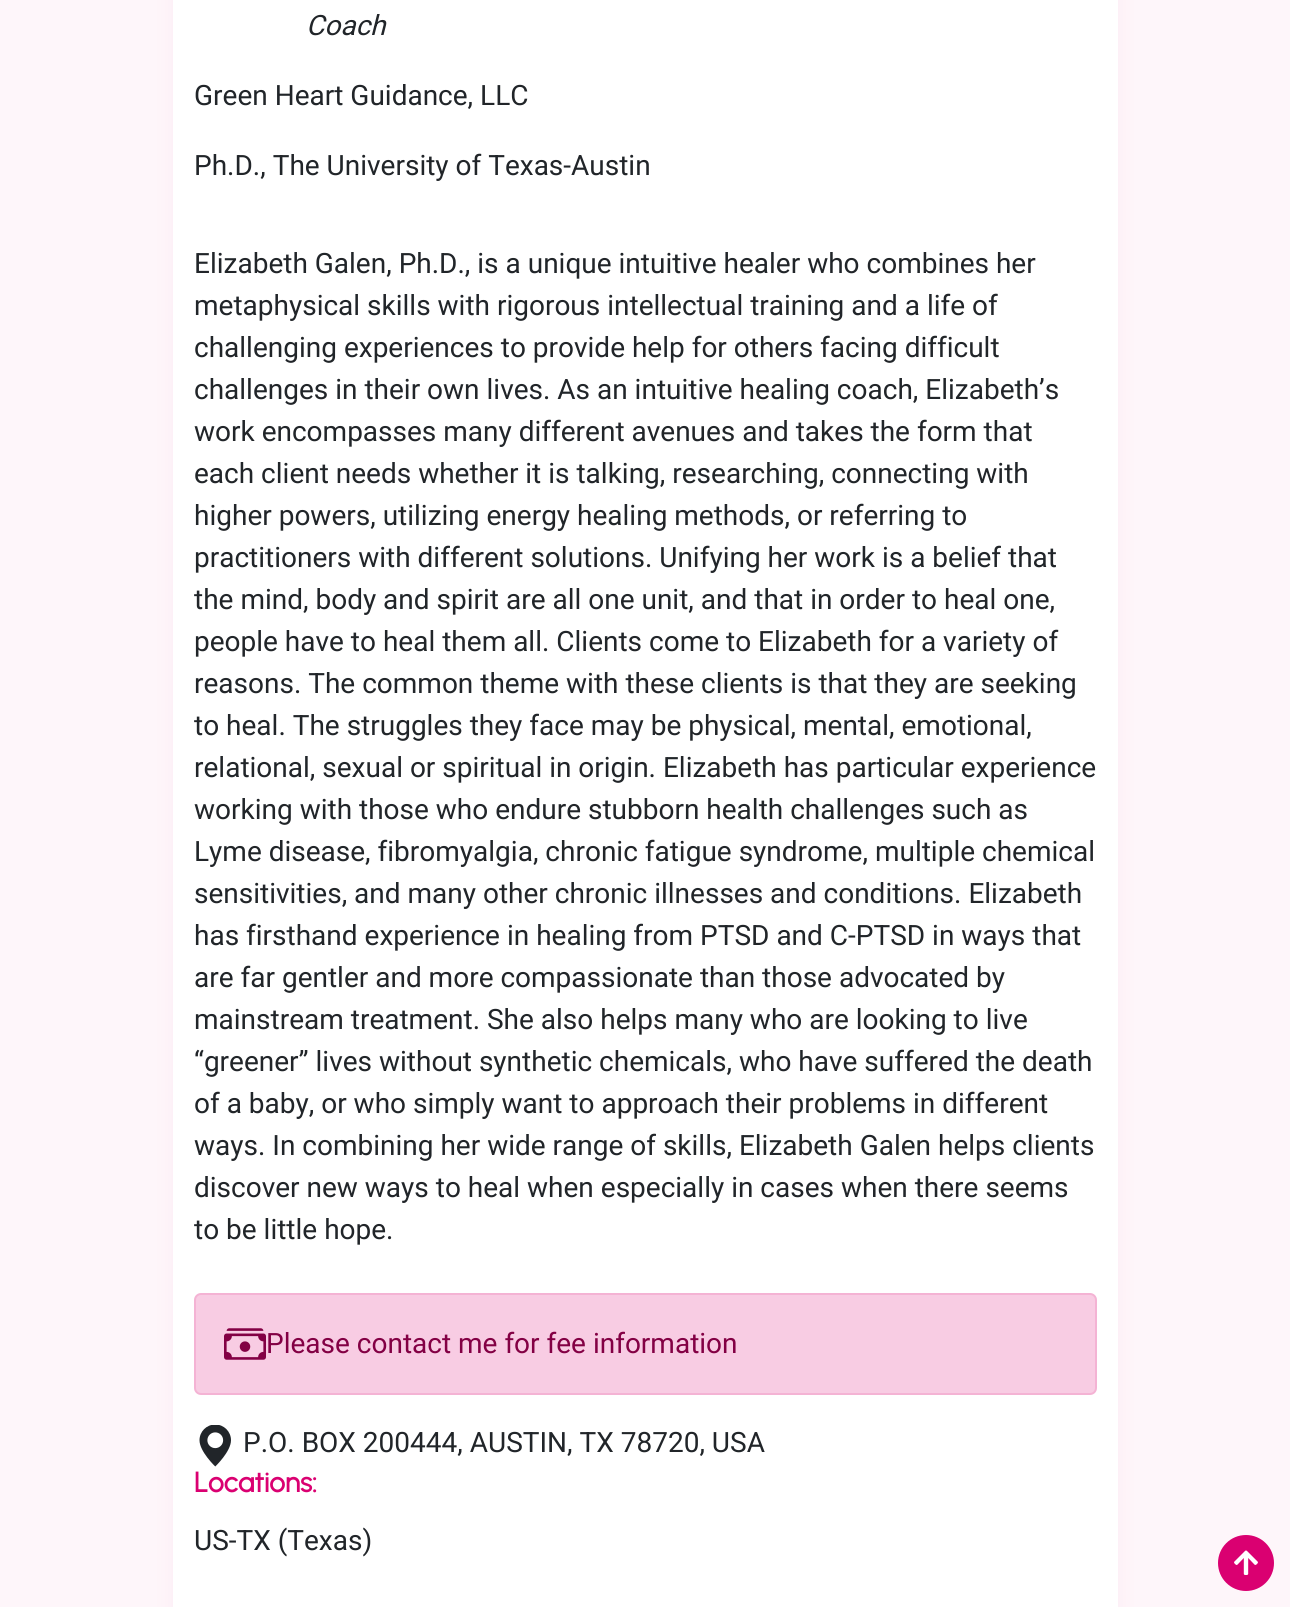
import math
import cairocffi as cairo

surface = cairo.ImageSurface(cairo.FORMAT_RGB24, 1290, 1607)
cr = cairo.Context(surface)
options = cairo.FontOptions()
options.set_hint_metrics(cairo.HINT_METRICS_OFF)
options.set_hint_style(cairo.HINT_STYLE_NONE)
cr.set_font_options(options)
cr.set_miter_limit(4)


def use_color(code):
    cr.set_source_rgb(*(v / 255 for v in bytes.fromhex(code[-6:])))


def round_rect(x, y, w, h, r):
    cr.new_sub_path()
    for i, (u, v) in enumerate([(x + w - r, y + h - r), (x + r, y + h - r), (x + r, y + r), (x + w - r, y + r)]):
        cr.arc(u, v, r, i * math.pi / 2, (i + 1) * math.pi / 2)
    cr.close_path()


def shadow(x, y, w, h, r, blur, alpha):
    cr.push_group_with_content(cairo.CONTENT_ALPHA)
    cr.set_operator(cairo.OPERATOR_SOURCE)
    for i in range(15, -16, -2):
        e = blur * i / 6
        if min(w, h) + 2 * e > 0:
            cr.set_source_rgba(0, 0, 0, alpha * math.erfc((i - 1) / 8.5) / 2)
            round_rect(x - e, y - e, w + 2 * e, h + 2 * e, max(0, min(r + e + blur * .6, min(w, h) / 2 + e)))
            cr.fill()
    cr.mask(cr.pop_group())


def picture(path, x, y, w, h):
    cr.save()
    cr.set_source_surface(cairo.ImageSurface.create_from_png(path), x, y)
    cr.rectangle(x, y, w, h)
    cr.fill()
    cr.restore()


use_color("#fef6fa")
cr.paint()
use_color("#da0071")
shadow(173, -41, 945, 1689, 9, 10.5, 0.05)
use_color("#ffffff")
cr.rectangle(173, 0, 945, 1607)
cr.fill()
cr.select_font_face("Roboto", cairo.FONT_SLANT_ITALIC)
cr.set_font_size(28)
use_color("#212529")
cr.move_to(306, 35)
cr.show_text("Coach")
cr.select_font_face("Roboto")
cr.move_to(194, 105)
cr.show_text("Green Heart Guidance, LLC")
cr.move_to(194, 175)
cr.show_text("Ph.D., The University of Texas-Austin")
cr.move_to(194, 273)
cr.show_text("Elizabeth Galen, Ph.D., is a unique intuitive healer who combines her")
cr.move_to(194, 315)
cr.show_text("metaphysical skills with rigorous intellectual training and a life of")
cr.move_to(194, 357)
cr.show_text("challenging experiences to provide help for others facing difficult")
cr.move_to(194, 399)
cr.show_text("challenges in their own lives. As an intuitive healing coach, Elizabeth’s")
cr.move_to(194, 441)
cr.show_text("work encompasses many different avenues and takes the form that")
cr.move_to(194, 483)
cr.show_text("each client needs whether it is talking, researching, connecting with")
cr.move_to(194, 525)
cr.show_text("higher powers, utilizing energy healing methods, or referring to")
cr.move_to(194, 567)
cr.show_text("practitioners with different solutions. Unifying her work is a belief that")
cr.move_to(194, 609)
cr.show_text("the mind, body and spirit are all one unit, and that in order to heal one,")
cr.move_to(194, 651)
cr.show_text("people have to heal them all. Clients come to Elizabeth for a variety of")
cr.move_to(194, 693)
cr.show_text("reasons. The common theme with these clients is that they are seeking")
cr.move_to(194, 735)
cr.show_text("to heal. The struggles they face may be physical, mental, emotional,")
cr.move_to(194, 777)
cr.show_text("relational, sexual or spiritual in origin. Elizabeth has particular experience")
cr.move_to(194, 819)
cr.show_text("working with those who endure stubborn health challenges such as")
cr.move_to(194, 861)
cr.show_text("Lyme disease, fibromyalgia, chronic fatigue syndrome, multiple chemical")
cr.move_to(194, 903)
cr.show_text("sensitivities, and many other chronic illnesses and conditions. Elizabeth")
cr.move_to(194, 945)
cr.show_text("has firsthand experience in healing from PTSD and C-PTSD in ways that")
cr.move_to(194, 987)
cr.show_text("are far gentler and more compassionate than those advocated by")
cr.move_to(194, 1029)
cr.show_text("mainstream treatment. She also helps many who are looking to live")
cr.move_to(194, 1071)
cr.show_text("“greener” lives without synthetic chemicals, who have suffered the death")
cr.move_to(194, 1113)
cr.show_text("of a baby, or who simply want to approach their problems in different")
cr.move_to(194, 1155)
cr.show_text("ways. In combining her wide range of skills, Elizabeth Galen helps clients")
cr.move_to(194, 1197)
cr.show_text("discover new ways to heal when especially in cases when there seems")
cr.move_to(194, 1239)
cr.show_text("to be little hope.")
use_color("#f8cce3")
round_rect(195, 1294, 901, 100, 6)
cr.fill_preserve()
use_color("#f4b3d4")
cr.stroke()
picture("img1.png", 224, 1328, 42, 32)
use_color("#830044")
cr.move_to(266, 1353)
cr.show_text("Please contact me for fee information")
picture("img2.png", 199, 1425, 32, 42)
use_color("#212529")
cr.move_to(243, 1452)
cr.show_text("P.O. BOX 200444, AUSTIN, TX 78720, USA")
cr.select_font_face("Urbanist", cairo.FONT_SLANT_NORMAL, cairo.FONT_WEIGHT_BOLD)
use_color("#da0071")
cr.move_to(194, 1492)
cr.show_text("Locations:")
cr.select_font_face("Roboto")
use_color("#212529")
cr.move_to(194, 1550)
cr.show_text("US-TX (Texas)")
use_color("#da0071")
cr.new_path()
cr.arc(1246, 1563, 28, 0, 2 * math.pi)
cr.fill()
picture("img3.png", 1234, 1550, 24, 25)
surface.write_to_png("result.png")
